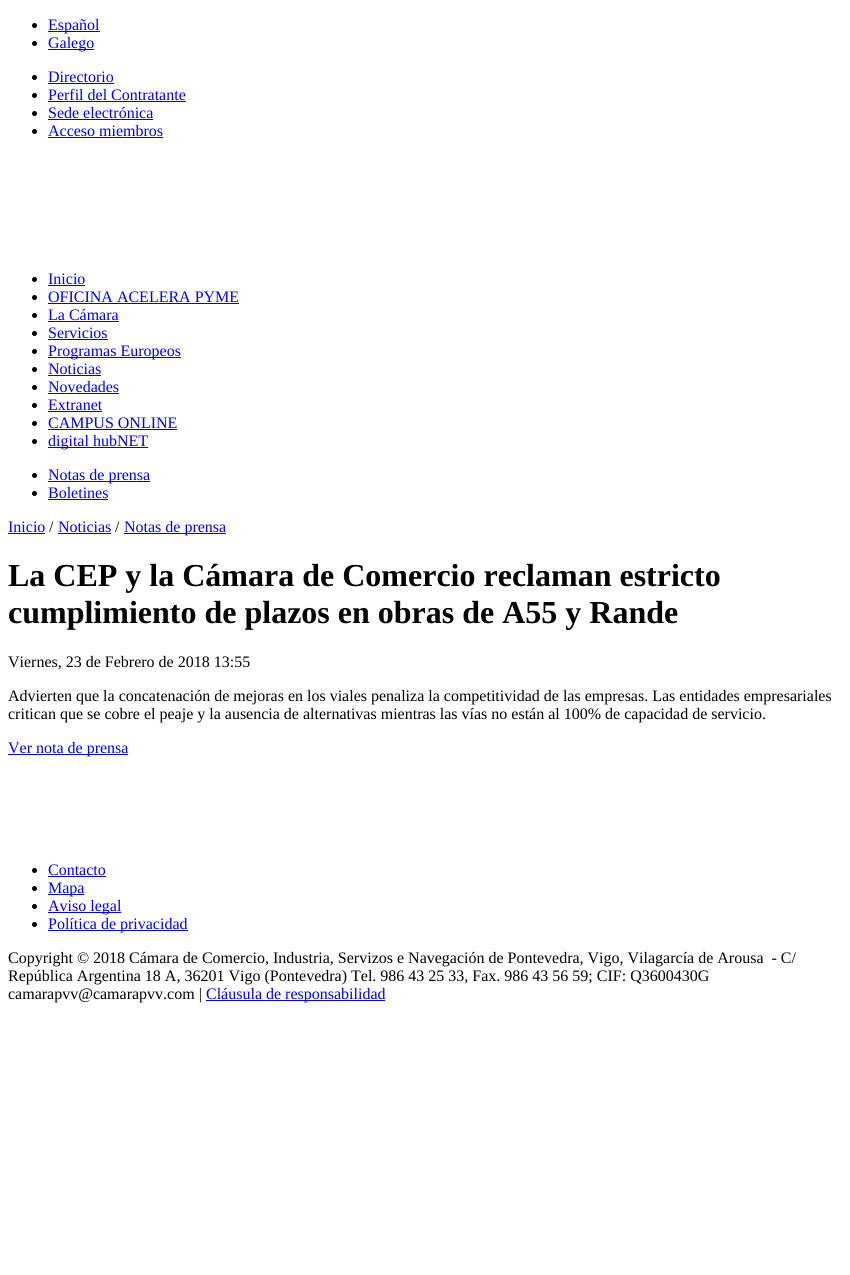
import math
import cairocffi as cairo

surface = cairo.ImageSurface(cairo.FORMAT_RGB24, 850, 1275)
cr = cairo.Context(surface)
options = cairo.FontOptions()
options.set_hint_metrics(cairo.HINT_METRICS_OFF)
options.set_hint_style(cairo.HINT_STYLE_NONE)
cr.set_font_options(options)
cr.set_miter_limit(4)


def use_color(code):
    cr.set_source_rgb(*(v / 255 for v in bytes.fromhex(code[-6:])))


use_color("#ffffff")
cr.paint()
use_color("#000000")
cr.arc(34.5, 25.5, 2.5, 0, 2 * math.pi)
cr.fill()
use_color("#0000ee")
cr.rectangle(48, 31, 52, 1)
cr.fill()
cr.select_font_face("Liberation Serif")
cr.set_font_size(16)
cr.move_to(48, 30)
cr.show_text("Español")
use_color("#000000")
cr.new_path()
cr.arc(34.5, 43.5, 2.5, 0, 2 * math.pi)
cr.fill()
use_color("#0000ee")
cr.rectangle(48, 49, 46, 1)
cr.fill()
cr.move_to(48, 48)
cr.show_text("Galego")
use_color("#000000")
cr.new_path()
cr.arc(34.5, 77.5, 2.5, 0, 2 * math.pi)
cr.fill()
use_color("#0000ee")
cr.move_to(48, 82)
cr.show_text("Directorio")
cr.rectangle(48, 83, 66, 1)
cr.fill()
use_color("#000000")
cr.arc(34.5, 95.5, 2.5, 0, 2 * math.pi)
cr.fill()
use_color("#0000ee")
cr.move_to(48, 100)
cr.show_text("Perfil del Contratante")
cr.rectangle(48, 101, 138, 1)
cr.fill()
use_color("#000000")
cr.arc(34.5, 113.5, 2.5, 0, 2 * math.pi)
cr.fill()
use_color("#0000ee")
cr.move_to(48, 118)
cr.show_text("Sede electrónica")
cr.rectangle(48, 119, 105, 1)
cr.fill()
use_color("#000000")
cr.arc(34.5, 131.5, 2.5, 0, 2 * math.pi)
cr.fill()
use_color("#0000ee")
cr.move_to(48, 136)
cr.show_text("Acceso miembros")
cr.rectangle(48, 137, 115, 1)
cr.fill()
use_color("#000000")
cr.arc(34.5, 279.5, 2.5, 0, 2 * math.pi)
cr.fill()
use_color("#0000ee")
cr.move_to(48, 284)
cr.show_text("Inicio")
cr.rectangle(48, 285, 37, 1)
cr.fill()
use_color("#000000")
cr.arc(34.5, 297.5, 2.5, 0, 2 * math.pi)
cr.fill()
use_color("#0000ee")
cr.move_to(48, 302)
cr.show_text("OFICINA ACELERA PYME")
cr.rectangle(48, 303, 191, 1)
cr.fill()
use_color("#000000")
cr.arc(34.5, 315.5, 2.5, 0, 2 * math.pi)
cr.fill()
use_color("#0000ee")
cr.move_to(48, 320)
cr.show_text("La Cámara")
cr.rectangle(48, 321, 71, 1)
cr.fill()
use_color("#000000")
cr.arc(34.5, 333.5, 2.5, 0, 2 * math.pi)
cr.fill()
use_color("#0000ee")
cr.move_to(48, 338)
cr.show_text("Servicios")
cr.rectangle(48, 339, 60, 1)
cr.fill()
use_color("#000000")
cr.arc(34.5, 351.5, 2.5, 0, 2 * math.pi)
cr.fill()
use_color("#0000ee")
cr.rectangle(48, 357, 133, 1)
cr.fill()
cr.move_to(48, 356)
cr.show_text("Programas Europeos")
use_color("#000000")
cr.new_path()
cr.arc(34.5, 369.5, 2.5, 0, 2 * math.pi)
cr.fill()
use_color("#0000ee")
cr.move_to(48, 374)
cr.show_text("Noticias")
cr.rectangle(48, 375, 53, 1)
cr.fill()
use_color("#000000")
cr.arc(34.5, 387.5, 2.5, 0, 2 * math.pi)
cr.fill()
use_color("#0000ee")
cr.move_to(48, 392)
cr.show_text("Novedades")
cr.rectangle(48, 393, 71, 1)
cr.fill()
use_color("#000000")
cr.arc(34.5, 405.5, 2.5, 0, 2 * math.pi)
cr.fill()
use_color("#0000ee")
cr.move_to(48, 410)
cr.show_text("Extranet")
cr.rectangle(48, 411, 54, 1)
cr.fill()
use_color("#000000")
cr.arc(34.5, 423.5, 2.5, 0, 2 * math.pi)
cr.fill()
use_color("#0000ee")
cr.move_to(48, 428)
cr.show_text("CAMPUS ONLINE")
cr.rectangle(48, 429, 129, 1)
cr.fill()
use_color("#000000")
cr.arc(34.5, 441.5, 2.5, 0, 2 * math.pi)
cr.fill()
use_color("#0000ee")
cr.rectangle(48, 447, 100, 1)
cr.fill()
cr.move_to(48, 446)
cr.show_text("digital hubNET")
use_color("#000000")
cr.new_path()
cr.arc(34.5, 475.5, 2.5, 0, 2 * math.pi)
cr.fill()
use_color("#0000ee")
cr.rectangle(48, 481, 102, 1)
cr.fill()
cr.move_to(48, 480)
cr.show_text("Notas de prensa")
use_color("#000000")
cr.new_path()
cr.arc(34.5, 493.5, 2.5, 0, 2 * math.pi)
cr.fill()
use_color("#0000ee")
cr.move_to(48, 498)
cr.show_text("Boletines")
cr.rectangle(48, 499, 60, 1)
cr.fill()
cr.move_to(8, 532)
cr.show_text("Inicio")
cr.rectangle(8, 533, 37, 1)
cr.fill()
use_color("#000000")
cr.move_to(49, 532)
cr.show_text("/")
use_color("#0000ee")
cr.move_to(58, 532)
cr.show_text("Noticias")
cr.rectangle(58, 533, 53, 1)
cr.fill()
use_color("#000000")
cr.move_to(115, 532)
cr.show_text("/")
use_color("#0000ee")
cr.rectangle(124, 533, 102, 1)
cr.fill()
cr.move_to(124, 532)
cr.show_text("Notas de prensa")
cr.select_font_face("Liberation Serif", cairo.FONT_SLANT_NORMAL, cairo.FONT_WEIGHT_BOLD)
cr.set_font_size(32)
use_color("#000000")
cr.move_to(8, 586)
cr.show_text("La CEP y la Cámara de Comercio reclaman estricto")
cr.move_to(8, 623)
cr.show_text("cumplimiento de plazos en obras de A55 y Rande")
cr.select_font_face("Liberation Serif")
cr.set_font_size(16)
cr.move_to(8, 667)
cr.show_text("Viernes, 23 de Febrero de 2018 13:55")
cr.move_to(8, 701)
cr.show_text("Advierten que la concatenación de mejoras en los viales penaliza la competitividad de las empresas. Las entidades empresariales")
cr.move_to(8, 719)
cr.show_text("critican que se cobre el peaje y la ausencia de alternativas mientras las vías no están al 100% de capacidad de servicio.")
use_color("#0000ee")
cr.rectangle(8, 754, 120, 1)
cr.fill()
cr.move_to(8, 753)
cr.show_text("Ver nota de prensa")
use_color("#000000")
cr.new_path()
cr.arc(34.5, 870.5, 2.5, 0, 2 * math.pi)
cr.fill()
use_color("#0000ee")
cr.move_to(48, 875)
cr.show_text("Contacto")
cr.rectangle(48, 876, 58, 1)
cr.fill()
use_color("#000000")
cr.arc(34.5, 888.5, 2.5, 0, 2 * math.pi)
cr.fill()
use_color("#0000ee")
cr.rectangle(48, 894, 36, 1)
cr.fill()
cr.move_to(48, 893)
cr.show_text("Mapa")
use_color("#000000")
cr.new_path()
cr.arc(34.5, 906.5, 2.5, 0, 2 * math.pi)
cr.fill()
use_color("#0000ee")
cr.rectangle(48, 912, 73, 1)
cr.fill()
cr.move_to(48, 911)
cr.show_text("Aviso legal")
use_color("#000000")
cr.new_path()
cr.arc(34.5, 924.5, 2.5, 0, 2 * math.pi)
cr.fill()
use_color("#0000ee")
cr.rectangle(48, 930, 140, 1)
cr.fill()
cr.move_to(48, 929)
cr.show_text("Política de privacidad")
use_color("#000000")
cr.move_to(8, 963)
cr.show_text("Copyright © 2018 Cámara de Comercio, Industria, Servizos e Navegación de Pontevedra, Vigo, Vilagarcía de Arousa  - C/")
cr.move_to(8, 981)
cr.show_text("República Argentina 18 A, 36201 Vigo (Pontevedra) Tel. 986 43 25 33, Fax. 986 43 56 59; CIF: Q3600430G")
cr.move_to(8, 999)
cr.show_text("camarapvv@camarapvv.com |")
use_color("#0000ee")
cr.rectangle(206, 1000, 179, 1)
cr.fill()
cr.move_to(206, 999)
cr.show_text("Cláusula de responsabilidad")
surface.write_to_png("result.png")
